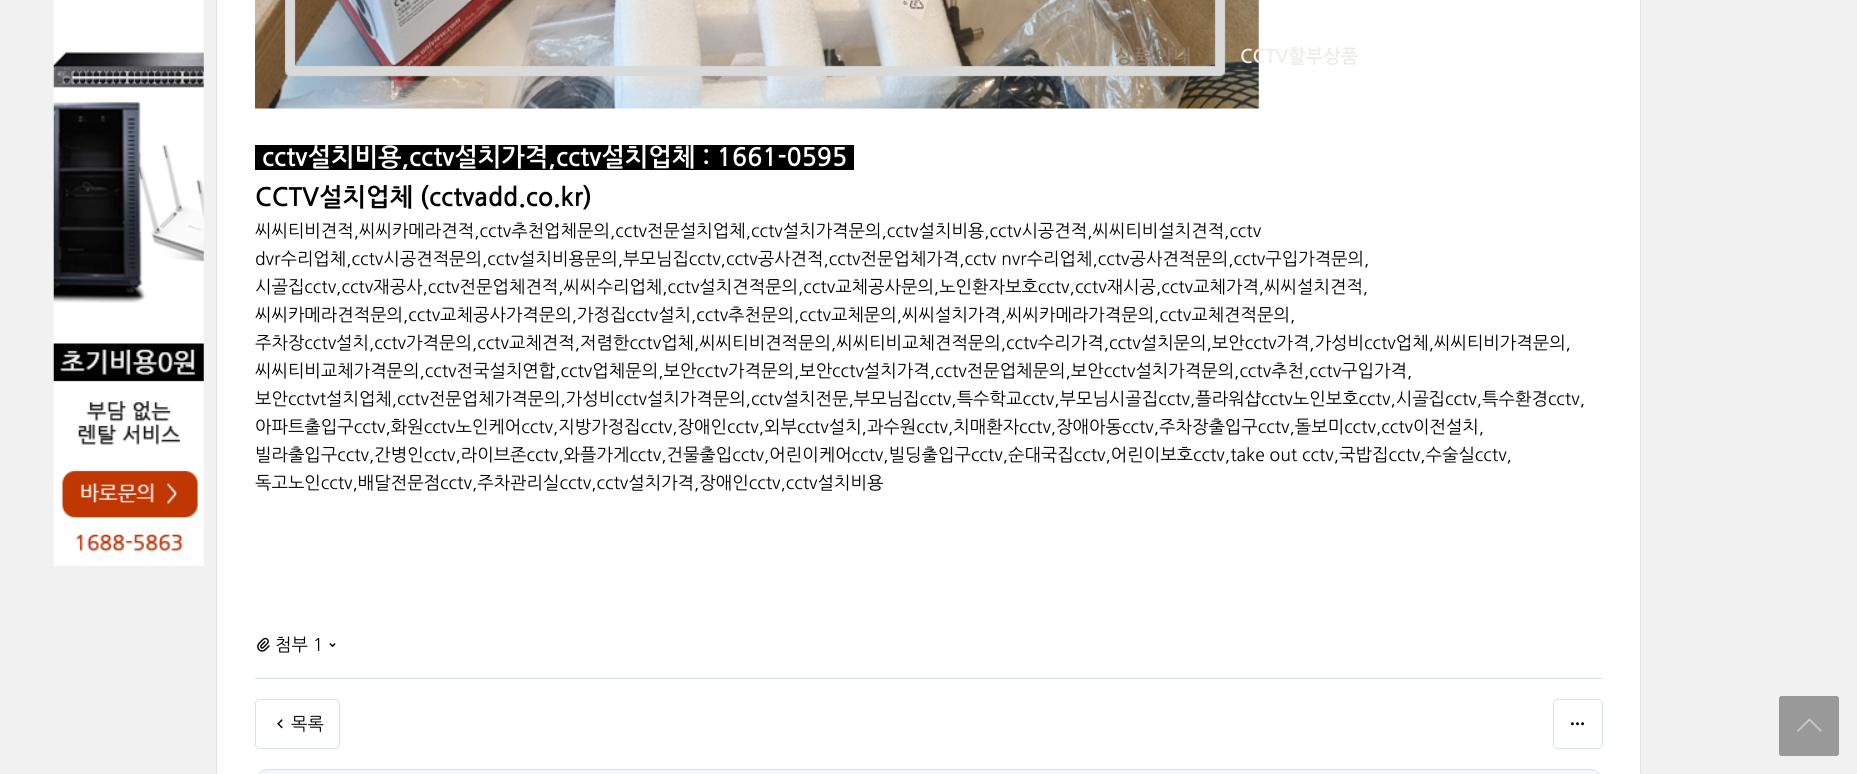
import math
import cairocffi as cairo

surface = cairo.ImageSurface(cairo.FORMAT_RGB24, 1857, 774)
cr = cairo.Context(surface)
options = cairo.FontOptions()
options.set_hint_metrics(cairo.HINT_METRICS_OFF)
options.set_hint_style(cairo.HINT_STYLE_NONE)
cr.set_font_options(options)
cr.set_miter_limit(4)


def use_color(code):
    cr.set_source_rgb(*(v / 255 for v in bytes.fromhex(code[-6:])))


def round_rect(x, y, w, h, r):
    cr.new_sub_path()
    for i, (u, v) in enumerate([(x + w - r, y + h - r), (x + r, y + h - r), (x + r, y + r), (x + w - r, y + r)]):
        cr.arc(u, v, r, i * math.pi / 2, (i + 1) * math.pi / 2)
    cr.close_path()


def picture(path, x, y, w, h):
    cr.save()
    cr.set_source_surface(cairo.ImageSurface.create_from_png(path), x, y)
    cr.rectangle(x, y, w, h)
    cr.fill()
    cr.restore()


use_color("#f1f1f1")
cr.paint()
use_color("#ffffff")
cr.rectangle(216.5, -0.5, 1424, 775)
cr.fill_preserve()
use_color("#e1e1e1")
cr.set_line_width(1)
cr.stroke()
picture("img2.png", 255, 0, 1004, 109)
cr.select_font_face("NanumGothic", cairo.FONT_SLANT_NORMAL, cairo.FONT_WEIGHT_BOLD)
cr.set_font_size(18.75)
use_color("#8c7c68")
cr.move_to(1115, 63)
cr.show_text("상품 안내")
use_color("#efedea")
cr.move_to(1240, 63)
cr.show_text("CCTV할부상품")
picture("img1.png", 53, 0, 151, 566)
use_color("#000000")
cr.rectangle(255, 145, 599, 25)
cr.fill()
cr.set_font_size(25)
use_color("#ffffff")
cr.move_to(262, 166)
cr.show_text("cctv설치비용,cctv설치가격,cctv설치업체 : 1661-0595")
use_color("#000000")
cr.move_to(255, 206)
cr.show_text("CCTV설치업체 (cctvadd.co.kr)")
cr.select_font_face("NanumGothic")
cr.set_font_size(17.5)
cr.move_to(255, 237)
cr.show_text("씨씨티비견적,씨씨카메라견적,cctv추천업체문의,cctv전문설치업체,cctv설치가격문의,cctv설치비용,cctv시공견적,씨씨티비설치견적,cctv")
cr.move_to(255, 265)
cr.show_text("dvr수리업체,cctv시공견적문의,cctv설치비용문의,부모님집cctv,cctv공사견적,cctv전문업체가격,cctv nvr수리업체,cctv공사견적문의,cctv구입가격문의,")
cr.move_to(255, 293)
cr.show_text("시골집cctv,cctv재공사,cctv전문업체견적,씨씨수리업체,cctv설치견적문의,cctv교체공사문의,노인환자보호cctv,cctv재시공,cctv교체가격,씨씨설치견적,")
cr.move_to(255, 321)
cr.show_text("씨씨카메라견적문의,cctv교체공사가격문의,가정집cctv설치,cctv추천문의,cctv교체문의,씨씨설치가격,씨씨카메라가격문의,cctv교체견적문의,")
cr.move_to(255, 349)
cr.show_text("주차장cctv설치,cctv가격문의,cctv교체견적,저렴한cctv업체,씨씨티비견적문의,씨씨티비교체견적문의,cctv수리가격,cctv설치문의,보안cctv가격,가성비cctv업체,씨씨티비가격문의,")
cr.move_to(255, 377)
cr.show_text("씨씨티비교체가격문의,cctv전국설치연합,cctv업체문의,보안cctv가격문의,보안cctv설치가격,cctv전문업체문의,보안cctv설치가격문의,cctv추천,cctv구입가격,")
cr.move_to(255, 405)
cr.show_text("보안cctvt설치업체,cctv전문업체가격문의,가성비cctv설치가격문의,cctv설치전문,부모님집cctv,특수학교cctv,부모님시골집cctv,플라워샵cctv노인보호cctv,시골집cctv,특수환경cctv,")
cr.move_to(255, 433)
cr.show_text("아파트출입구cctv,화원cctv노인케어cctv,지방가정집cctv,장애인cctv,외부cctv설치,과수원cctv,치매환자cctv,장애아동cctv,주차장출입구cctv,돌보미cctv,cctv이전설치,")
cr.move_to(255, 461)
cr.show_text("빌라출입구cctv,간병인cctv,라이브존cctv,와플가게cctv,건물출입cctv,어린이케어cctv,빌딩출입구cctv,순대국집cctv,어린이보호cctv,take out cctv,국밥집cctv,수술실cctv,")
cr.move_to(255, 489)
cr.show_text("독고노인cctv,배달전문점cctv,주차관리실cctv,cctv설치가격,장애인cctv,cctv설치비용")
picture("img3.png", 257, 637, 13, 15)
cr.move_to(275, 651)
cr.show_text("첨부 1")
picture("img4.png", 329, 643, 7, 5)
use_color("#d6e4e5")
cr.rectangle(255, 678, 1348, 1)
cr.fill()
round_rect(255.5, 699.5, 84, 49, 4.5)
cr.stroke()
picture("img5.png", 277, 719, 6, 10)
use_color("#000000")
cr.move_to(291, 730)
cr.show_text("목록")
round_rect(1553.5, 699.5, 49, 49, 4.5)
use_color("#d6e4e5")
cr.stroke()
picture("img6.png", 1571, 722, 13, 4)
use_color("#f4f8fc")
round_rect(255.5, 769.5, 1347, 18, 12.5)
cr.fill_preserve()
use_color("#d6e4e5")
cr.stroke()
use_color("#999999")
round_rect(1779, 696, 60, 60, 2.5)
cr.fill()
picture("img7.png", 1796, 718, 26, 14)
surface.write_to_png("result.png")
